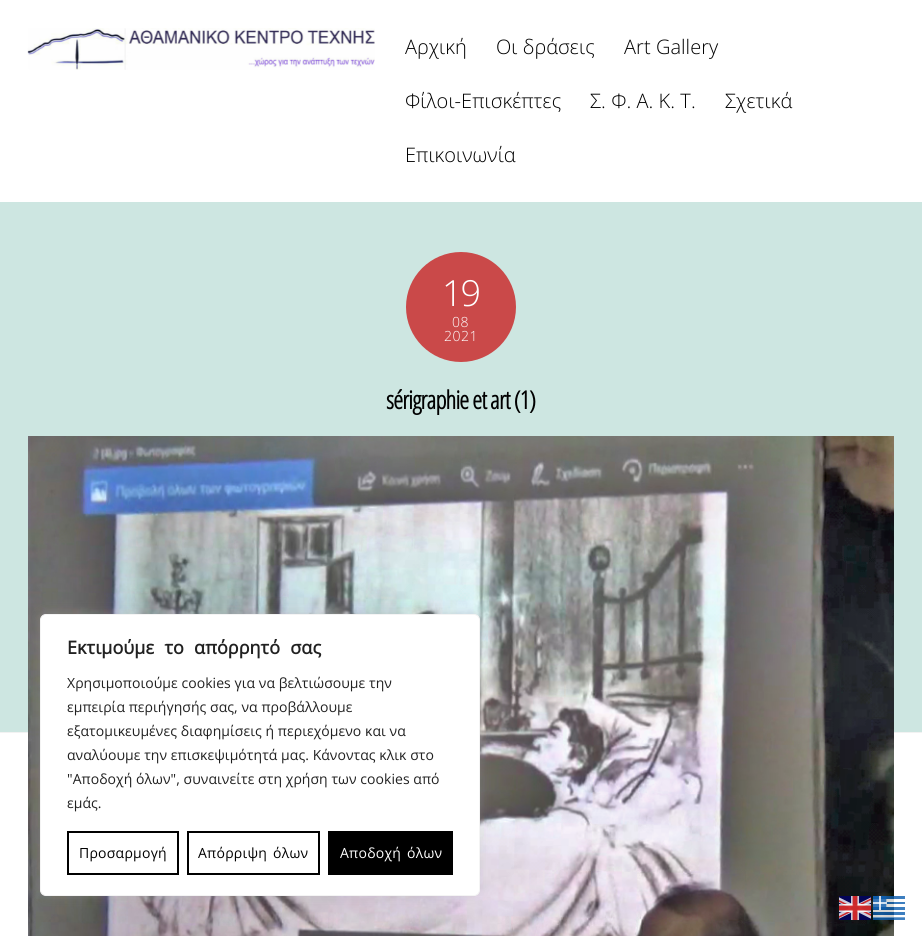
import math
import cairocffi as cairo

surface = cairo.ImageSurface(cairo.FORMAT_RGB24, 922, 936)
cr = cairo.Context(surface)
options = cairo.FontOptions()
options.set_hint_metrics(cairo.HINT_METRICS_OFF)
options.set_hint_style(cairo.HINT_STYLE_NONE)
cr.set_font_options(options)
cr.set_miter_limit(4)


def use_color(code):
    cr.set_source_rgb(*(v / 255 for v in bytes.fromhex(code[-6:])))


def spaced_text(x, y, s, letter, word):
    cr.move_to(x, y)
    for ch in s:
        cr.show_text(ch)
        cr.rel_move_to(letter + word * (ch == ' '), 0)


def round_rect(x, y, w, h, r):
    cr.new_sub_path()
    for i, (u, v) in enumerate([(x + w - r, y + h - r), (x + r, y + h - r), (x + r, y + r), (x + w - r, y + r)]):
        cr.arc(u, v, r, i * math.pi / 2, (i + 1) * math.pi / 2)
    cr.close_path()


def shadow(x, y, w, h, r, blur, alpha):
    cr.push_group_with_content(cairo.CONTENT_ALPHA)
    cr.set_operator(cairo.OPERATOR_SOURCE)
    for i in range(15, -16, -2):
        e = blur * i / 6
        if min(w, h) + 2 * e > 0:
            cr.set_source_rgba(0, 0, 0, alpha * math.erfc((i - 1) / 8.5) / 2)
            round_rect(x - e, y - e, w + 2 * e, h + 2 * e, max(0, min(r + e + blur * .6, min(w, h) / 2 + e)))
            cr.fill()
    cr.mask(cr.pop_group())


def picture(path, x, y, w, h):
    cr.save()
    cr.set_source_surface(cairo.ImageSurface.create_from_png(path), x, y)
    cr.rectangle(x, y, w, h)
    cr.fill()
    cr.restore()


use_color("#cde6e1")
cr.paint()
use_color("#ffffff")
cr.rectangle(0, 0, 922, 202)
cr.fill()
picture("img1.png", 27, 28, 348, 42)
cr.select_font_face("Open Sans Light")
cr.set_font_size(20)
use_color("#000000")
spaced_text(405, 54, "Αρχική", 0.05, 0)
spaced_text(496, 54, "Οι δράσεις", 0.05, 0)
spaced_text(624, 54, "Art Gallery", 0.05, 0)
spaced_text(405, 108, "Φίλοι-Επισκέπτες", 0.05, 0)
spaced_text(590, 108, "Σ. Φ. Α. Κ. Τ.", 0.05, 0)
spaced_text(725, 108, "Σχετικά", 0.05, 0)
spaced_text(405, 162, "Επικοινωνία", 0.05, 0)
use_color("#ca4949")
cr.new_path()
cr.arc(461, 307, 55, 0, 2 * math.pi)
cr.fill()
cr.set_font_size(36)
use_color("#ffffff")
spaced_text(442, 306, "19", -2, 0)
cr.set_font_size(14)
spaced_text(452, 327, "08", 0.5, 0)
spaced_text(444, 341, "2021", 0.5, 0)
cr.select_font_face("Open Sans Condensed", cairo.FONT_SLANT_NORMAL, cairo.FONT_WEIGHT_BOLD)
cr.set_font_size(25)
use_color("#000000")
spaced_text(386, 409, "sérigraphie et art (1)", -0.75, 0)
use_color("#ffffff")
cr.rectangle(0, 733, 922, 203)
cr.fill()
use_color("#f2f2f2")
cr.rectangle(0, 732, 922, 1)
cr.fill()
picture("img2.png", 28, 436, 866, 500)
use_color("#acabab")
shadow(40, 613, 440, 282, 6, 5, 0.3)
use_color("#ffffff")
round_rect(40.5, 614.5, 439, 281, 5.5)
cr.fill_preserve()
use_color("#f4f4f4")
cr.set_line_width(1)
cr.stroke()
cr.select_font_face("Open Sans", cairo.FONT_SLANT_NORMAL, cairo.FONT_WEIGHT_BOLD)
cr.set_font_size(18)
use_color("#212121")
spaced_text(67, 654, "Εκτιμούμε το απόρρητό σας", 0.05, 5.5)
cr.select_font_face("Open Sans")
cr.set_font_size(14)
spaced_text(67, 688, "Χρησιμοποιούμε cookies για να βελτιώσουμε την", 0.05, 0)
spaced_text(67, 712, "εμπειρία περιήγησής σας, να προβάλλουμε", 0.05, 0)
spaced_text(67, 736, "εξατομικευμένες διαφημίσεις ή περιεχόμενο και να", 0.05, 0)
spaced_text(67, 760, "αναλύουμε την επισκεψιμότητά μας. Κάνοντας κλικ στο", 0.05, 0)
spaced_text(67, 784, "\"Αποδοχή όλων\", συναινείτε στη χρήση των cookies από", 0.05, 0)
spaced_text(67, 808, "εμάς.", 0.05, 0)
cr.rectangle(68, 832, 110, 42)
use_color("#000000")
cr.set_line_width(2)
cr.stroke()
spaced_text(79, 858, "Προσαρμογή", 0.25, 0)
cr.rectangle(188, 832, 131, 42)
cr.stroke()
spaced_text(198, 858, "Απόρριψη όλων", 0.25, 2)
cr.rectangle(328, 831, 125, 44)
cr.fill()
use_color("#ffffff")
spaced_text(340, 858, "Αποδοχή όλων", 0.25, 2)
picture("img3.png", 839, 896, 32, 24)
picture("img4.png", 873, 896, 32, 24)
surface.write_to_png("result.png")
